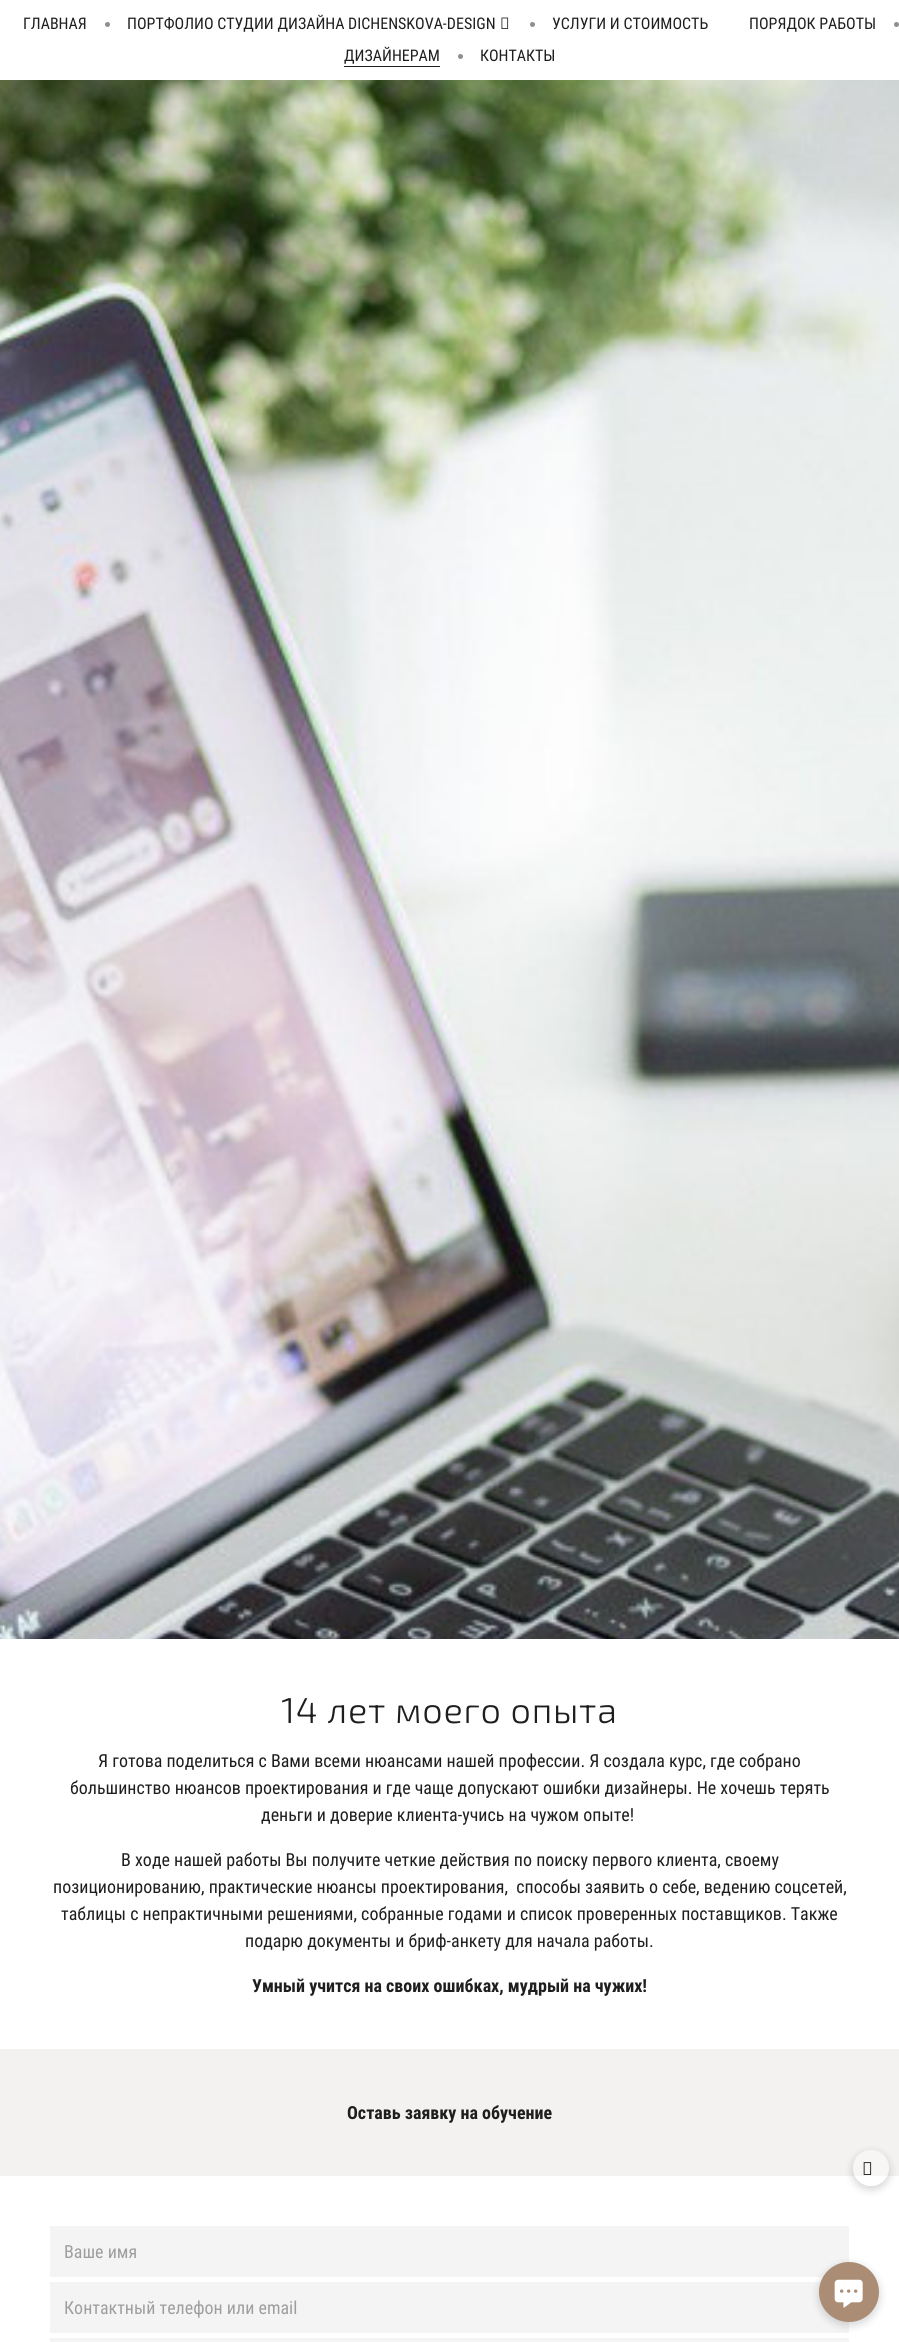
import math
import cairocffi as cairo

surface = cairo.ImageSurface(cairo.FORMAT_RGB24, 899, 2342)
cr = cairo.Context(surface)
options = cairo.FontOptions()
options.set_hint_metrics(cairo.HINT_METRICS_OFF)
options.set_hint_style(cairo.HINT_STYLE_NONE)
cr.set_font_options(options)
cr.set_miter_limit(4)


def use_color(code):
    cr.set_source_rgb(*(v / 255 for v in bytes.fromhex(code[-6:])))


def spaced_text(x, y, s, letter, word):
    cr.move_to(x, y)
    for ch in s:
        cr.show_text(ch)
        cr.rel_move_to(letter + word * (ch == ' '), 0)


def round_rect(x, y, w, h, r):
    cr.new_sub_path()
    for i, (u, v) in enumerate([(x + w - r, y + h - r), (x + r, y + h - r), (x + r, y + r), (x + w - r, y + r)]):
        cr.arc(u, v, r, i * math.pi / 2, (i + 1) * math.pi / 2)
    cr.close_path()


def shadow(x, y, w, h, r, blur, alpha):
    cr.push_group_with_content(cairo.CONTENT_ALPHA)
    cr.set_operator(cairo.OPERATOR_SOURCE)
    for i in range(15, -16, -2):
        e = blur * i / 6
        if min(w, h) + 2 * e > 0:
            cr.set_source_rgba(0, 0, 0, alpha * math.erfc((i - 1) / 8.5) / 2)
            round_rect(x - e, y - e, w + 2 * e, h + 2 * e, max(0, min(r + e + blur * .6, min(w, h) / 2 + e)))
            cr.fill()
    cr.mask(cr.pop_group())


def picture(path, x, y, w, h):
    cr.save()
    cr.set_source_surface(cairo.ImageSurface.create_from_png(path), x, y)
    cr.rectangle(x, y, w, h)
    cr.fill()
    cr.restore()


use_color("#ffffff")
cr.paint()
cr.select_font_face("Roboto Condensed")
cr.set_font_size(16)
use_color("#1e1e1e")
cr.move_to(23, 29)
cr.show_text("ГЛАВНАЯ")
use_color("#8f8f8f")
cr.new_path()
cr.arc(107.5, 24.5, 2.5, 0, 2 * math.pi)
cr.fill()
use_color("#1e1e1e")
cr.move_to(127, 29)
cr.show_text("ПОРТФОЛИО СТУДИИ ДИЗАЙНА DICHENSKOVA-DESIGN")
picture("img1.png", 501, 17, 8, 12)
use_color("#8f8f8f")
cr.arc(532.5, 24.5, 2.5, 0, 2 * math.pi)
cr.fill()
use_color("#1e1e1e")
cr.move_to(552, 29)
cr.show_text("УСЛУГИ И СТОИМОСТЬ")
cr.move_to(749, 29)
cr.show_text("ПОРЯДОК РАБОТЫ")
use_color("#8f8f8f")
cr.new_path()
cr.arc(896.5, 24.5, 2.5, 0, 2 * math.pi)
cr.fill()
use_color("#1e1e1e")
cr.move_to(344, 61)
cr.show_text("ДИЗАЙНЕРАМ")
cr.rectangle(344, 66, 96, 1)
cr.fill()
use_color("#8f8f8f")
cr.arc(460.5, 56.5, 2.5, 0, 2 * math.pi)
cr.fill()
use_color("#1e1e1e")
cr.move_to(480, 61)
cr.show_text("КОНТАКТЫ")
picture("img2.png", 0, 80, 899, 1559)
cr.select_font_face("Exo 2 Light")
cr.set_font_size(36)
spaced_text(281, 1723, "14 лет моего опыта", 0.75, 0)
cr.select_font_face("Roboto Condensed")
cr.set_font_size(18)
cr.move_to(98, 1767)
cr.show_text("Я готова поделиться с Вами всеми нюансами нашей профессии. Я создала курс, где собрано")
cr.move_to(70, 1794)
cr.show_text("большинство нюансов проектирования и где чаще допускают ошибки дизайнеры. Не хочешь терять")
cr.move_to(261, 1821)
cr.show_text("деньги и доверие клиента-учись на чужом опыте!")
cr.move_to(121, 1866)
cr.show_text("В ходе нашей работы Вы получите четкие действия по поиску первого клиента, своему")
cr.move_to(53, 1893)
cr.show_text("позиционированию, практические нюансы проектирования,  способы заявить о себе, ведению соцсетей,")
cr.move_to(61, 1920)
cr.show_text("таблицы с непрактичными решениями, собранные годами и список проверенных поставщиков. Также")
cr.move_to(245, 1947)
cr.show_text("подарю документы и бриф-анкету для начала работы.")
cr.select_font_face("Roboto Condensed", cairo.FONT_SLANT_NORMAL, cairo.FONT_WEIGHT_BOLD)
cr.move_to(252, 1992)
cr.show_text("Умный учится на своих ошибках, мудрый на чужих!")
use_color("#f3f2f0")
cr.rectangle(0, 2049, 899, 127)
cr.fill()
use_color("#1e1e1e")
cr.move_to(347, 2119)
cr.show_text("Оставь заявку на обучение")
use_color("#f4f4f4")
cr.rectangle(50, 2226, 799, 51)
cr.fill()
cr.select_font_face("Roboto Condensed")
use_color("#9e9e9e")
cr.move_to(64, 2258)
cr.show_text("Ваше имя")
use_color("#f4f4f4")
cr.rectangle(50, 2282, 799, 51)
cr.fill()
use_color("#9e9e9e")
cr.move_to(64, 2314)
cr.show_text("Контактный телефон или email")
use_color("#f4f4f4")
cr.rectangle(50, 2338, 799, 4)
cr.fill()
cr.save()
cr.set_fill_rule(cairo.FILL_RULE_EVEN_ODD)
cr.new_path()
cr.move_to(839, 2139)
cr.line_to(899, 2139)
cr.line_to(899, 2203)
cr.line_to(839, 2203)
cr.close_path()
cr.move_to(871, 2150)
cr.curve_to(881, 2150, 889, 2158, 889, 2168)
cr.curve_to(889, 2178, 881, 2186, 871, 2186)
cr.curve_to(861, 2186, 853, 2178, 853, 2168)
cr.curve_to(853, 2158, 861, 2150, 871, 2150)
cr.close_path()
cr.clip()
use_color("#000000")
shadow(852, 2152, 38, 38, 19, 4, 0.15)
cr.restore()
cr.set_source_rgba(1, 1, 1, 0.3)
cr.arc(871, 2168, 18, 0, 2 * math.pi)
cr.fill()
picture("img3.png", 863, 2162, 9, 13)
use_color("#000000")
shadow(818, 2264, 62, 62, 31, 4, 0.15)
use_color("#aa8d74")
cr.arc(849, 2292, 30, 0, 2 * math.pi)
cr.fill()
picture("img4.png", 834, 2279, 29, 29)
surface.write_to_png("result.png")
